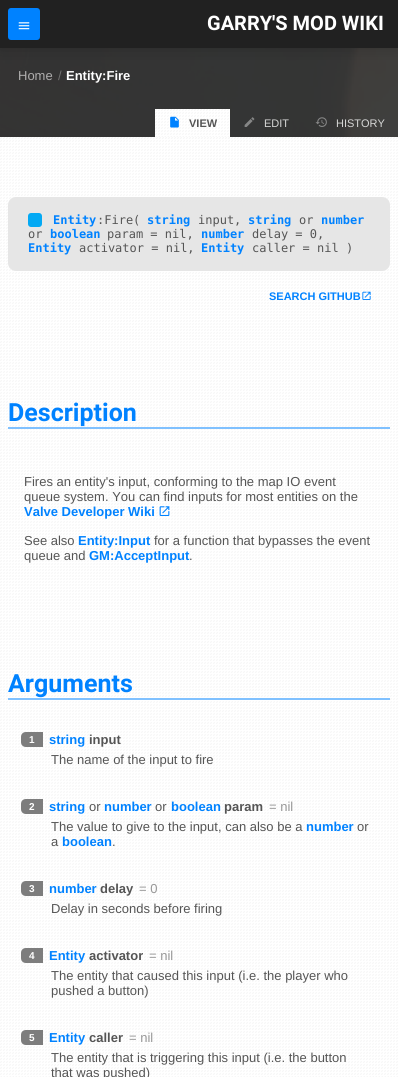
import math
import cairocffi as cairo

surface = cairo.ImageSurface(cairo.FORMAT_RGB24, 398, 1077)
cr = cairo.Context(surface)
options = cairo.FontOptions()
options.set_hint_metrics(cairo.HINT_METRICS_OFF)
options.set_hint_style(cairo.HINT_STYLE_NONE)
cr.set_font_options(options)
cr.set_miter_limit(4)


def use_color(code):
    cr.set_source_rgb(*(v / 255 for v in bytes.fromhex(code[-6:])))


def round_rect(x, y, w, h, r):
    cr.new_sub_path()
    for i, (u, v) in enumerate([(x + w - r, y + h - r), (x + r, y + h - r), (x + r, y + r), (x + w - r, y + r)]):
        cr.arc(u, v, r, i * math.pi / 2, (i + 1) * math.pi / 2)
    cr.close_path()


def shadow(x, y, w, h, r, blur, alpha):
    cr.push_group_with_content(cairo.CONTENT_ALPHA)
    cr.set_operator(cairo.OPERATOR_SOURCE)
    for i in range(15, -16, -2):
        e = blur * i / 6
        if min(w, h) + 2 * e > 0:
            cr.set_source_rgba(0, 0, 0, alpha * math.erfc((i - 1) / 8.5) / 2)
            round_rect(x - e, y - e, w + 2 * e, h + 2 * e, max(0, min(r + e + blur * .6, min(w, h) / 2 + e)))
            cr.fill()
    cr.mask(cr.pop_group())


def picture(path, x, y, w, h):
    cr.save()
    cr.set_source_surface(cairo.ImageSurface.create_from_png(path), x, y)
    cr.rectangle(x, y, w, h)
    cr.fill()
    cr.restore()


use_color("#ffffff")
cr.paint()
picture("img1.png", 0, 48, 398, 89)
use_color("#000000")
shadow(0, 0, 398, 48, 0, 8, 0.2)
use_color("#212121")
cr.rectangle(0, 0, 398, 48)
cr.fill()
use_color("#0082ff")
round_rect(8, 8, 32, 32, 3)
cr.fill()
picture("img2.png", 18, 22, 12, 8)
cr.select_font_face("Heebo", cairo.FONT_SLANT_NORMAL, cairo.FONT_WEIGHT_BOLD)
cr.set_font_size(20)
use_color("#ffffff")
cr.move_to(207, 30)
cr.show_text("GARRY'S MOD WIKI")
cr.select_font_face("Liberation Sans")
cr.set_font_size(13)
use_color("#aeadad")
cr.move_to(18, 80)
cr.show_text("Home")
use_color("#707070")
cr.move_to(58, 80)
cr.show_text("/")
cr.select_font_face("Liberation Sans", cairo.FONT_SLANT_NORMAL, cairo.FONT_WEIGHT_BOLD)
use_color("#ffffff")
cr.move_to(66, 80)
cr.show_text("Entity:Fire")
picture("img3.png", 155, 109, 75, 28)
picture("img4.png", 170, 116, 9, 12)
cr.set_font_size(11)
use_color("#555555")
cr.move_to(189, 127)
cr.show_text("VIEW")
picture("img5.png", 244, 117, 11, 10)
cr.select_font_face("Liberation Sans")
use_color("#d6d7d6")
cr.move_to(264, 127)
cr.show_text("EDIT")
picture("img6.png", 315, 117, 12, 10)
cr.move_to(336, 127)
cr.show_text("HISTORY")
picture("img7.png", 0, 137, 398, 940)
use_color("#e6e6e6")
round_rect(8, 197, 382, 74, 8)
cr.fill()
use_color("#03a9f4")
round_rect(28, 213, 14, 14, 3)
cr.fill()
cr.select_font_face("DejaVu Sans Mono", cairo.FONT_SLANT_NORMAL, cairo.FONT_WEIGHT_BOLD)
cr.set_font_size(12)
use_color("#0082ff")
cr.move_to(53, 224)
cr.show_text("Entity")
cr.select_font_face("DejaVu Sans Mono")
use_color("#555555")
cr.move_to(97, 224)
cr.show_text(":Fire(")
cr.select_font_face("DejaVu Sans Mono", cairo.FONT_SLANT_NORMAL, cairo.FONT_WEIGHT_BOLD)
use_color("#0082ff")
cr.move_to(147, 224)
cr.show_text("string")
cr.select_font_face("DejaVu Sans Mono")
use_color("#555555")
cr.move_to(198, 224)
cr.show_text("input,")
cr.select_font_face("DejaVu Sans Mono", cairo.FONT_SLANT_NORMAL, cairo.FONT_WEIGHT_BOLD)
use_color("#0082ff")
cr.move_to(248, 224)
cr.show_text("string")
cr.select_font_face("DejaVu Sans Mono")
use_color("#555555")
cr.move_to(299, 224)
cr.show_text("or")
cr.select_font_face("DejaVu Sans Mono", cairo.FONT_SLANT_NORMAL, cairo.FONT_WEIGHT_BOLD)
use_color("#0082ff")
cr.move_to(321, 224)
cr.show_text("number")
cr.select_font_face("DejaVu Sans Mono")
use_color("#555555")
cr.move_to(28, 238)
cr.show_text("or")
cr.select_font_face("DejaVu Sans Mono", cairo.FONT_SLANT_NORMAL, cairo.FONT_WEIGHT_BOLD)
use_color("#0082ff")
cr.move_to(50, 238)
cr.show_text("boolean")
cr.select_font_face("DejaVu Sans Mono")
use_color("#555555")
cr.move_to(107, 238)
cr.show_text("param = nil,")
cr.select_font_face("DejaVu Sans Mono", cairo.FONT_SLANT_NORMAL, cairo.FONT_WEIGHT_BOLD)
use_color("#0082ff")
cr.move_to(201, 238)
cr.show_text("number")
cr.select_font_face("DejaVu Sans Mono")
use_color("#555555")
cr.move_to(252, 238)
cr.show_text("delay = 0,")
cr.select_font_face("DejaVu Sans Mono", cairo.FONT_SLANT_NORMAL, cairo.FONT_WEIGHT_BOLD)
use_color("#0082ff")
cr.move_to(28, 252)
cr.show_text("Entity")
cr.select_font_face("DejaVu Sans Mono")
use_color("#555555")
cr.move_to(79, 252)
cr.show_text("activator = nil,")
cr.select_font_face("DejaVu Sans Mono", cairo.FONT_SLANT_NORMAL, cairo.FONT_WEIGHT_BOLD)
use_color("#0082ff")
cr.move_to(201, 252)
cr.show_text("Entity")
cr.select_font_face("DejaVu Sans Mono")
use_color("#555555")
cr.move_to(252, 252)
cr.show_text("caller = nil )")
cr.select_font_face("Liberation Sans", cairo.FONT_SLANT_NORMAL, cairo.FONT_WEIGHT_BOLD)
cr.set_font_size(11)
use_color("#0082ff")
cr.move_to(269, 300)
cr.show_text("SEARCH GITHUB")
picture("img8.png", 362, 291, 9, 9)
use_color("#80c1ff")
cr.rectangle(8, 427, 382, 2)
cr.fill()
cr.select_font_face("Heebo", cairo.FONT_SLANT_NORMAL, cairo.FONT_WEIGHT_BOLD)
cr.set_font_size(25)
use_color("#0082ff")
cr.move_to(8, 421)
cr.show_text("Description")
cr.select_font_face("Liberation Sans")
cr.set_font_size(13)
use_color("#555555")
cr.move_to(24, 486)
cr.show_text("Fires an entity's input, conforming to the map IO event")
cr.move_to(24, 501)
cr.show_text("queue system. You can find inputs for most entities on the")
cr.select_font_face("Liberation Sans", cairo.FONT_SLANT_NORMAL, cairo.FONT_WEIGHT_BOLD)
use_color("#0082ff")
cr.move_to(24, 516)
cr.show_text("Valve Developer Wiki")
picture("img9.png", 159, 506, 11, 10)
cr.select_font_face("Liberation Sans")
use_color("#555555")
cr.move_to(24, 545)
cr.show_text("See also")
cr.select_font_face("Liberation Sans", cairo.FONT_SLANT_NORMAL, cairo.FONT_WEIGHT_BOLD)
use_color("#0082ff")
cr.move_to(78, 545)
cr.show_text("Entity:Input")
cr.select_font_face("Liberation Sans")
use_color("#555555")
cr.move_to(154, 545)
cr.show_text("for a function that bypasses the event")
cr.move_to(24, 560)
cr.show_text("queue and")
cr.select_font_face("Liberation Sans", cairo.FONT_SLANT_NORMAL, cairo.FONT_WEIGHT_BOLD)
use_color("#0082ff")
cr.move_to(89, 560)
cr.show_text("GM:AcceptInput")
cr.select_font_face("Liberation Sans")
use_color("#555555")
cr.move_to(189, 560)
cr.show_text(".")
use_color("#80c1ff")
cr.rectangle(8, 698, 382, 2)
cr.fill()
cr.select_font_face("Heebo", cairo.FONT_SLANT_NORMAL, cairo.FONT_WEIGHT_BOLD)
cr.set_font_size(25)
use_color("#0082ff")
cr.move_to(8, 692)
cr.show_text("Arguments")
use_color("#7d7d7d")
cr.new_path()
cr.move_to(26, 732)
cr.line_to(43, 732)
cr.line_to(43, 747)
cr.line_to(26, 747)
cr.curve_to(23, 747, 21, 745, 21, 742)
cr.line_to(21, 737)
cr.curve_to(21, 734, 23, 732, 26, 732)
cr.close_path()
cr.fill()
cr.select_font_face("Liberation Sans", cairo.FONT_SLANT_NORMAL, cairo.FONT_WEIGHT_BOLD)
cr.set_font_size(10)
use_color("#ffffff")
cr.move_to(29, 743)
cr.show_text("1")
cr.set_font_size(13)
use_color("#0082ff")
cr.move_to(49, 744)
cr.show_text("string")
use_color("#555555")
cr.move_to(89, 744)
cr.show_text("input")
cr.select_font_face("Liberation Sans")
cr.move_to(51, 764)
cr.show_text("The name of the input to fire")
use_color("#7d7d7d")
cr.new_path()
cr.move_to(26, 799)
cr.line_to(43, 799)
cr.line_to(43, 814)
cr.line_to(26, 814)
cr.curve_to(23, 814, 21, 812, 21, 809)
cr.line_to(21, 804)
cr.curve_to(21, 801, 23, 799, 26, 799)
cr.close_path()
cr.fill()
cr.select_font_face("Liberation Sans", cairo.FONT_SLANT_NORMAL, cairo.FONT_WEIGHT_BOLD)
cr.set_font_size(10)
use_color("#ffffff")
cr.move_to(29, 810)
cr.show_text("2")
cr.set_font_size(13)
use_color("#0082ff")
cr.move_to(49, 811)
cr.show_text("string")
cr.select_font_face("Liberation Sans")
use_color("#555555")
cr.move_to(89, 811)
cr.show_text("or")
cr.select_font_face("Liberation Sans", cairo.FONT_SLANT_NORMAL, cairo.FONT_WEIGHT_BOLD)
use_color("#0082ff")
cr.move_to(104, 811)
cr.show_text("number")
cr.select_font_face("Liberation Sans")
use_color("#555555")
cr.move_to(155, 811)
cr.show_text("or")
cr.select_font_face("Liberation Sans", cairo.FONT_SLANT_NORMAL, cairo.FONT_WEIGHT_BOLD)
use_color("#0082ff")
cr.move_to(171, 811)
cr.show_text("boolean")
use_color("#555555")
cr.move_to(224, 811)
cr.show_text("param")
cr.select_font_face("Liberation Sans")
use_color("#979797")
cr.move_to(269, 811)
cr.show_text("= nil")
use_color("#555555")
cr.move_to(51, 831)
cr.show_text("The value to give to the input, can also be a")
cr.select_font_face("Liberation Sans", cairo.FONT_SLANT_NORMAL, cairo.FONT_WEIGHT_BOLD)
use_color("#0082ff")
cr.move_to(306, 831)
cr.show_text("number")
cr.select_font_face("Liberation Sans")
use_color("#555555")
cr.move_to(357, 831)
cr.show_text("or")
cr.move_to(51, 846)
cr.show_text("a")
cr.select_font_face("Liberation Sans", cairo.FONT_SLANT_NORMAL, cairo.FONT_WEIGHT_BOLD)
use_color("#0082ff")
cr.move_to(62, 846)
cr.show_text("boolean")
cr.select_font_face("Liberation Sans")
use_color("#555555")
cr.move_to(112, 846)
cr.show_text(".")
use_color("#7d7d7d")
cr.new_path()
cr.move_to(26, 881)
cr.line_to(43, 881)
cr.line_to(43, 896)
cr.line_to(26, 896)
cr.curve_to(23, 896, 21, 894, 21, 891)
cr.line_to(21, 886)
cr.curve_to(21, 883, 23, 881, 26, 881)
cr.close_path()
cr.fill()
cr.select_font_face("Liberation Sans", cairo.FONT_SLANT_NORMAL, cairo.FONT_WEIGHT_BOLD)
cr.set_font_size(10)
use_color("#ffffff")
cr.move_to(29, 892)
cr.show_text("3")
cr.set_font_size(13)
use_color("#0082ff")
cr.move_to(49, 893)
cr.show_text("number")
use_color("#555555")
cr.move_to(100, 893)
cr.show_text("delay")
cr.select_font_face("Liberation Sans")
use_color("#979797")
cr.move_to(139, 893)
cr.show_text("= 0")
use_color("#555555")
cr.move_to(51, 913)
cr.show_text("Delay in seconds before firing")
use_color("#7d7d7d")
cr.new_path()
cr.move_to(26, 948)
cr.line_to(43, 948)
cr.line_to(43, 963)
cr.line_to(26, 963)
cr.curve_to(23, 963, 21, 961, 21, 958)
cr.line_to(21, 953)
cr.curve_to(21, 950, 23, 948, 26, 948)
cr.close_path()
cr.fill()
cr.select_font_face("Liberation Sans", cairo.FONT_SLANT_NORMAL, cairo.FONT_WEIGHT_BOLD)
cr.set_font_size(10)
use_color("#ffffff")
cr.move_to(29, 959)
cr.show_text("4")
cr.set_font_size(13)
use_color("#0082ff")
cr.move_to(49, 960)
cr.show_text("Entity")
use_color("#555555")
cr.move_to(89, 960)
cr.show_text("activator")
cr.select_font_face("Liberation Sans")
use_color("#979797")
cr.move_to(149, 960)
cr.show_text("= nil")
use_color("#555555")
cr.move_to(51, 980)
cr.show_text("The entity that caused this input (i.e. the player who")
cr.move_to(51, 995)
cr.show_text("pushed a button)")
use_color("#7d7d7d")
cr.new_path()
cr.move_to(26, 1030)
cr.line_to(43, 1030)
cr.line_to(43, 1045)
cr.line_to(26, 1045)
cr.curve_to(23, 1045, 21, 1043, 21, 1040)
cr.line_to(21, 1035)
cr.curve_to(21, 1032, 23, 1030, 26, 1030)
cr.close_path()
cr.fill()
cr.select_font_face("Liberation Sans", cairo.FONT_SLANT_NORMAL, cairo.FONT_WEIGHT_BOLD)
cr.set_font_size(10)
use_color("#ffffff")
cr.move_to(29, 1041)
cr.show_text("5")
cr.set_font_size(13)
use_color("#0082ff")
cr.move_to(49, 1042)
cr.show_text("Entity")
use_color("#555555")
cr.move_to(89, 1042)
cr.show_text("caller")
cr.select_font_face("Liberation Sans")
use_color("#979797")
cr.move_to(129, 1042)
cr.show_text("= nil")
use_color("#555555")
cr.move_to(51, 1062)
cr.show_text("The entity that is triggering this input (i.e. the button")
cr.move_to(51, 1077)
cr.show_text("that was pushed)")
surface.write_to_png("result.png")
